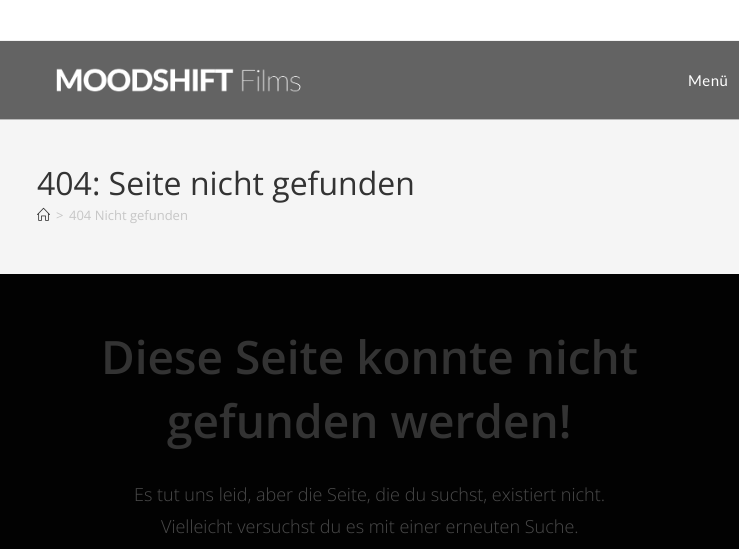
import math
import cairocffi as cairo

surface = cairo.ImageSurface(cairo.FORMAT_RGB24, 739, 549)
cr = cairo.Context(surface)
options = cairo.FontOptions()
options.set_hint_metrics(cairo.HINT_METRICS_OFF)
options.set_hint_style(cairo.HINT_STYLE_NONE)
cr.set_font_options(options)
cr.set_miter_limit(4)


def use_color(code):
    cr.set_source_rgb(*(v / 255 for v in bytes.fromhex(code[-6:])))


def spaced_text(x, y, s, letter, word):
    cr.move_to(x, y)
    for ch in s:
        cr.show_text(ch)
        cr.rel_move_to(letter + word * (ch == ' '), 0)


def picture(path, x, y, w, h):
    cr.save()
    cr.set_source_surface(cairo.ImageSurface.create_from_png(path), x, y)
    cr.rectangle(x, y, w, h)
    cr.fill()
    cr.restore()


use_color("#020202")
cr.paint()
use_color("#ffffff")
cr.rectangle(0, 0, 739, 40)
cr.fill()
use_color("#f1f1f1")
cr.rectangle(0, 40, 739, 1)
cr.fill()
use_color("#636363")
cr.rectangle(0, 41, 739, 78)
cr.fill()
use_color("#bababa")
cr.rectangle(0, 119, 739, 1)
cr.fill()
picture("img1.png", 56, 68, 245, 24)
cr.select_font_face("Lato")
cr.set_font_size(15)
use_color("#ffffff")
spaced_text(688, 86, "Menü", 0.5, 0)
use_color("#f5f5f5")
cr.rectangle(0, 120, 739, 154)
cr.fill()
cr.select_font_face("Open Sans")
cr.set_font_size(32)
use_color("#333333")
cr.move_to(37, 195)
cr.show_text("404: Seite nicht gefunden")
picture("img2.png", 37, 207, 13, 14)
cr.set_font_size(13)
use_color("#c6c6c6")
cr.move_to(56, 220)
cr.show_text(">")
cr.move_to(69, 220)
cr.show_text("404 Nicht gefunden")
cr.select_font_face("Open Sans SemiBold")
cr.set_font_size(46)
use_color("#333333")
cr.move_to(101, 374)
cr.show_text("Diese Seite konnte nicht")
cr.move_to(167, 438)
cr.show_text("gefunden werden!")
cr.select_font_face("Open Sans Light")
cr.set_font_size(18)
use_color("#4a4a4a")
cr.move_to(134, 501)
cr.show_text("Es tut uns leid, aber die Seite, die du suchst, existiert nicht.")
cr.move_to(161, 533)
cr.show_text("Vielleicht versuchst du es mit einer erneuten Suche.")
surface.write_to_png("result.png")
